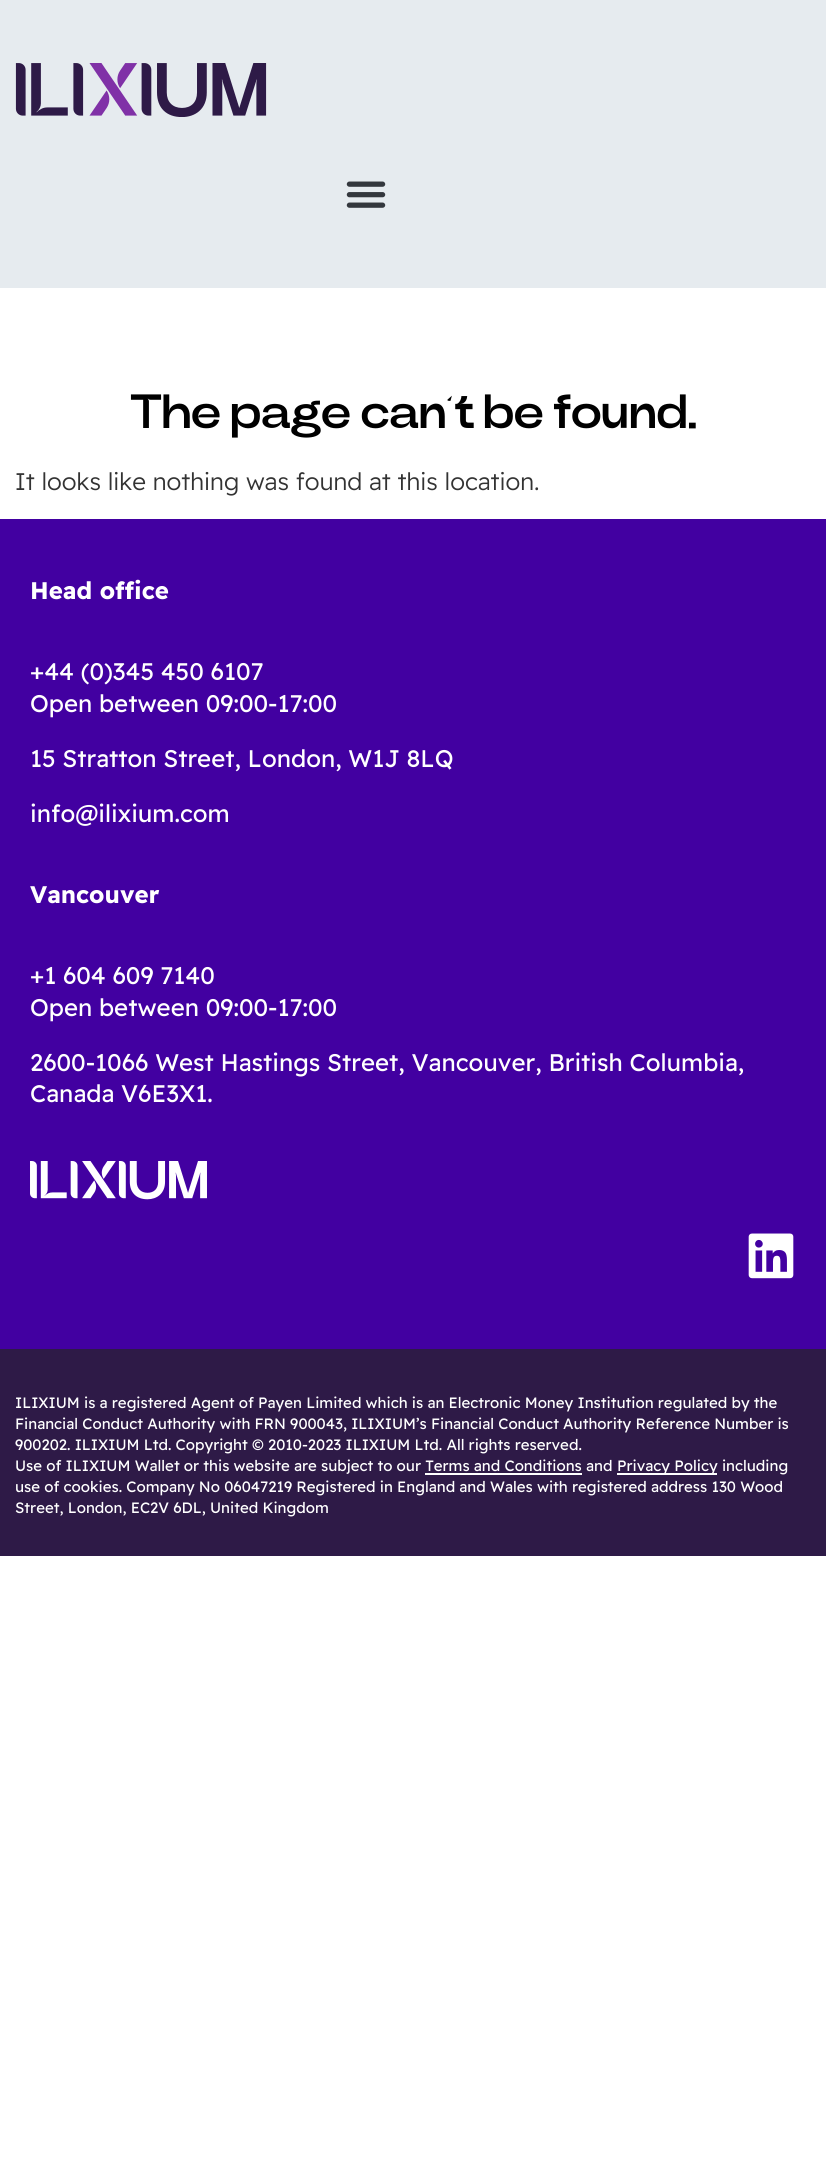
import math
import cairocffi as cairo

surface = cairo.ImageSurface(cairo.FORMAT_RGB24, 826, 2157)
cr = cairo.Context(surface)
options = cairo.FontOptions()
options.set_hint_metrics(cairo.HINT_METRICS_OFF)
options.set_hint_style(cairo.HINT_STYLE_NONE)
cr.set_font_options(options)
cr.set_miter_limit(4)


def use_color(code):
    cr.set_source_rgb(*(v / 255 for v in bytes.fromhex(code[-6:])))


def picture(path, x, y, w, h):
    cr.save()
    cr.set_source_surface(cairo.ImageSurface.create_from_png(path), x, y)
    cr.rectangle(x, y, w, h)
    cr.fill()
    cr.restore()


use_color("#ffffff")
cr.paint()
use_color("#e6ebef")
cr.rectangle(0, 0, 826, 288)
cr.fill()
picture("img1.png", 15, 63, 252, 54)
picture("img2.png", 346, 181, 40, 27)
cr.select_font_face("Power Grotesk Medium")
cr.set_font_size(48)
use_color("#000000")
cr.move_to(130, 428)
cr.show_text("The page can’t be found.")
cr.select_font_face("Readex Pro Light")
cr.set_font_size(24)
use_color("#333333")
cr.move_to(15, 490)
cr.show_text("It looks like nothing was found at this location.")
use_color("#4200a1")
cr.rectangle(0, 519, 826, 830)
cr.fill()
cr.select_font_face("Readex Pro", cairo.FONT_SLANT_NORMAL, cairo.FONT_WEIGHT_BOLD)
use_color("#ffffff")
cr.move_to(30, 599)
cr.show_text("Head office")
cr.select_font_face("Readex Pro")
cr.move_to(30, 680)
cr.show_text("+44 (0)345 450 6107")
cr.move_to(30, 712)
cr.show_text("Open between 09:00-17:00")
cr.move_to(30, 767)
cr.show_text("15 Stratton Street, London, W1J 8LQ")
cr.move_to(30, 822)
cr.show_text("info@ilixium.com")
cr.select_font_face("Readex Pro", cairo.FONT_SLANT_NORMAL, cairo.FONT_WEIGHT_BOLD)
cr.move_to(30, 903)
cr.show_text("Vancouver")
cr.select_font_face("Readex Pro")
cr.move_to(30, 984)
cr.show_text("+1 604 609 7140")
cr.move_to(30, 1016)
cr.show_text("Open between 09:00-17:00")
cr.move_to(30, 1071)
cr.show_text("2600-1066 West Hastings Street, Vancouver, British Columbia,")
cr.move_to(30, 1102)
cr.show_text("Canada V6E3X1.")
picture("img3.png", 30, 1161, 177, 39)
picture("img4.png", 748, 1233, 46, 46)
use_color("#2e1a47")
cr.rectangle(0, 1349, 826, 207)
cr.fill()
cr.set_font_size(15)
use_color("#ffffff")
cr.move_to(15, 1408)
cr.show_text("ILIXIUM is a registered Agent of Payen Limited which is an Electronic Money Institution regulated by the")
cr.move_to(15, 1429)
cr.show_text("Financial Conduct Authority with FRN 900043, ILIXIUM’s Financial Conduct Authority Reference Number is")
cr.move_to(15, 1450)
cr.show_text("900202. ILIXIUM Ltd. Copyright © 2010-2023 ILIXIUM Ltd. All rights reserved.")
cr.move_to(15, 1471)
cr.show_text("Use of ILIXIUM Wallet or this website are subject to our Terms and Conditions and")
cr.rectangle(617, 1473, 100, 2)
cr.fill()
cr.move_to(617, 1471)
cr.show_text("Privacy Policy including")
cr.rectangle(425, 1473, 157, 2)
cr.fill()
cr.move_to(15, 1492)
cr.show_text("use of cookies. Company No 06047219 Registered in England and Wales with registered address 130 Wood")
cr.move_to(15, 1513)
cr.show_text("Street, London, EC2V 6DL, United Kingdom")
surface.write_to_png("result.png")
